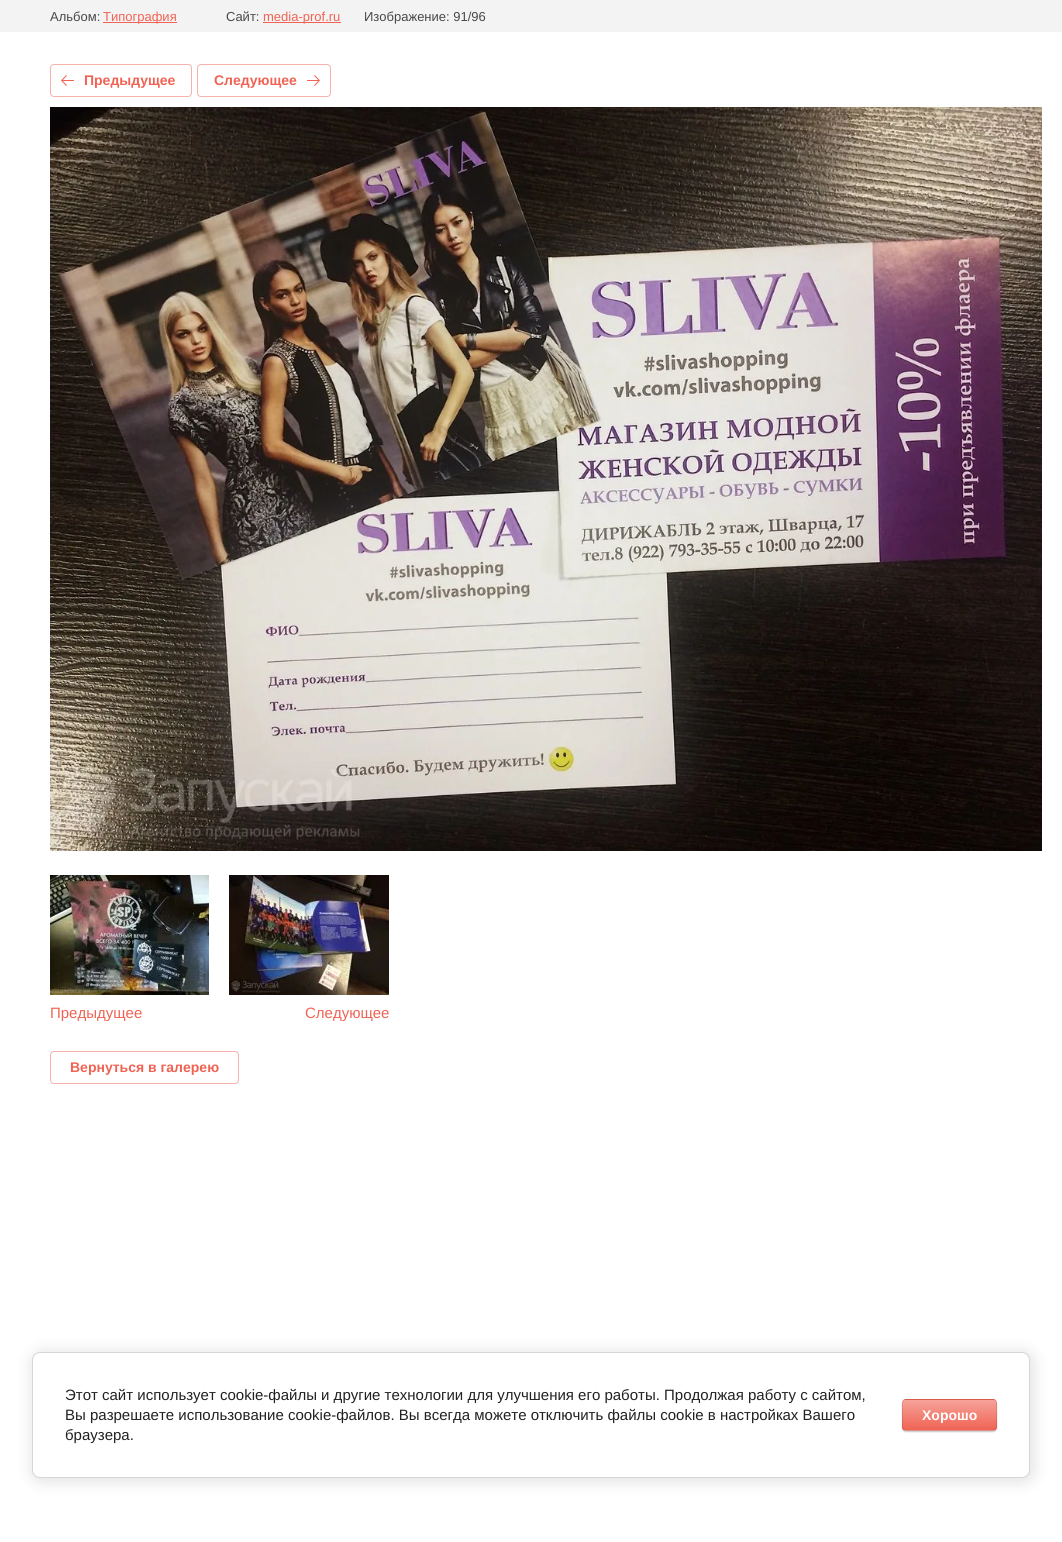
import math
import cairocffi as cairo

surface = cairo.ImageSurface(cairo.FORMAT_RGB24, 1062, 1542)
cr = cairo.Context(surface)
options = cairo.FontOptions()
options.set_hint_metrics(cairo.HINT_METRICS_OFF)
options.set_hint_style(cairo.HINT_STYLE_NONE)
cr.set_font_options(options)
cr.set_miter_limit(4)


def use_color(code):
    cr.set_source_rgb(*(v / 255 for v in bytes.fromhex(code[-6:])))


def round_rect(x, y, w, h, r):
    cr.new_sub_path()
    for i, (u, v) in enumerate([(x + w - r, y + h - r), (x + r, y + h - r), (x + r, y + r), (x + w - r, y + r)]):
        cr.arc(u, v, r, i * math.pi / 2, (i + 1) * math.pi / 2)
    cr.close_path()


def shadow(x, y, w, h, r, blur, alpha):
    cr.push_group_with_content(cairo.CONTENT_ALPHA)
    cr.set_operator(cairo.OPERATOR_SOURCE)
    for i in range(15, -16, -2):
        e = blur * i / 6
        if min(w, h) + 2 * e > 0:
            cr.set_source_rgba(0, 0, 0, alpha * math.erfc((i - 1) / 8.5) / 2)
            round_rect(x - e, y - e, w + 2 * e, h + 2 * e, max(0, min(r + e + blur * .6, min(w, h) / 2 + e)))
            cr.fill()
    cr.mask(cr.pop_group())


def picture(path, x, y, w, h):
    cr.save()
    cr.set_source_surface(cairo.ImageSurface.create_from_png(path), x, y)
    cr.rectangle(x, y, w, h)
    cr.fill()
    cr.restore()


use_color("#ffffff")
cr.paint()
use_color("#f3f3f3")
cr.rectangle(0, 0, 1062, 32)
cr.fill()
cr.select_font_face("Liberation Sans")
cr.set_font_size(13)
use_color("#484848")
cr.move_to(50, 21)
cr.show_text("Альбом:")
use_color("#f06354")
cr.rectangle(103, 22, 74, 1)
cr.fill()
cr.move_to(103, 21)
cr.show_text("Типография")
use_color("#484848")
cr.move_to(226, 21)
cr.show_text("Сайт:")
use_color("#f06354")
cr.rectangle(263, 22, 78, 1)
cr.fill()
cr.move_to(263, 21)
cr.show_text("media-prof.ru")
use_color("#484848")
cr.move_to(364, 21)
cr.show_text("Изображение: 91/96")
round_rect(50.5, 64.5, 141, 32, 3.5)
use_color("#f8b1aa")
cr.set_line_width(1)
cr.stroke()
picture("img1.png", 61, 75, 13, 11)
cr.select_font_face("Liberation Sans", cairo.FONT_SLANT_NORMAL, cairo.FONT_WEIGHT_BOLD)
cr.set_font_size(14)
use_color("#f06354")
cr.move_to(84, 85)
cr.show_text("Предыдущее")
round_rect(197.5, 64.5, 133, 32, 3.5)
use_color("#f8b1aa")
cr.stroke()
use_color("#f06354")
cr.move_to(214, 85)
cr.show_text("Следующее")
picture("img2.png", 307, 75, 13, 11)
picture("img3.png", 50, 107, 992, 744)
picture("img4.png", 50, 875, 159, 120)
cr.select_font_face("Liberation Sans")
cr.set_font_size(15)
cr.move_to(50, 1018)
cr.show_text("Предыдущее")
picture("img5.png", 229, 875, 160, 120)
cr.move_to(305, 1018)
cr.show_text("Следующее")
round_rect(50.5, 1051.5, 188, 32, 3.5)
use_color("#f8b1aa")
cr.stroke()
cr.select_font_face("Liberation Sans", cairo.FONT_SLANT_NORMAL, cairo.FONT_WEIGHT_BOLD)
cr.set_font_size(14)
use_color("#f06354")
cr.move_to(70, 1072)
cr.show_text("Вернуться в галерею")
use_color("#000000")
shadow(34, 1354, 998, 126, 8, 9, 0.14)
use_color("#ffffff")
round_rect(32.5, 1352.5, 997, 125, 7.5)
cr.fill_preserve()
use_color("#d6d6d6")
cr.stroke()
cr.select_font_face("Liberation Sans")
cr.set_font_size(15)
use_color("#212121")
cr.move_to(65, 1400)
cr.show_text("Этот сайт использует cookie-файлы и другие технологии для улучшения его работы. Продолжая работу с сайтом,")
cr.move_to(65, 1420)
cr.show_text("Вы разрешаете использование cookie-файлов. Вы всегда можете отключить файлы cookie в настройках Вашего")
cr.move_to(65, 1440)
cr.show_text("браузера.")
use_color("#000000")
shadow(902, 1400, 95, 32, 4, 0.5, 0.2)
cr.save()
round_rect(902, 1399, 95, 32, 4)
cr.clip()
gradient = cairo.LinearGradient(950, 1370, 950, 1400)
gradient.add_color_stop_rgba(0, 0.965, 0.639, 0.604, 1)
gradient.add_color_stop_rgba(1, 0.941, 0.388, 0.329, 1)
cr.set_source(gradient)
cr.rectangle(902, 1399, 95, 1)
cr.fill()
gradient = cairo.LinearGradient(950, 1400, 950, 1430)
gradient.add_color_stop_rgba(0, 0.965, 0.639, 0.604, 1)
gradient.add_color_stop_rgba(1, 0.941, 0.388, 0.329, 1)
cr.set_source(gradient)
cr.rectangle(902, 1400, 95, 30)
cr.fill()
gradient = cairo.LinearGradient(950, 1430, 950, 1460)
gradient.add_color_stop_rgba(0, 0.965, 0.639, 0.604, 1)
gradient.add_color_stop_rgba(1, 0.941, 0.388, 0.329, 1)
cr.set_source(gradient)
cr.rectangle(902, 1430, 95, 1)
cr.fill()
cr.restore()
round_rect(902.5, 1399.5, 94, 31, 3.5)
cr.set_source_rgba(0, 0, 0, 0.1)
cr.stroke()
cr.select_font_face("Liberation Sans", cairo.FONT_SLANT_NORMAL, cairo.FONT_WEIGHT_BOLD)
cr.set_font_size(14)
use_color("#ffffff")
cr.move_to(922, 1420)
cr.show_text("Хорошо")
surface.write_to_png("result.png")
